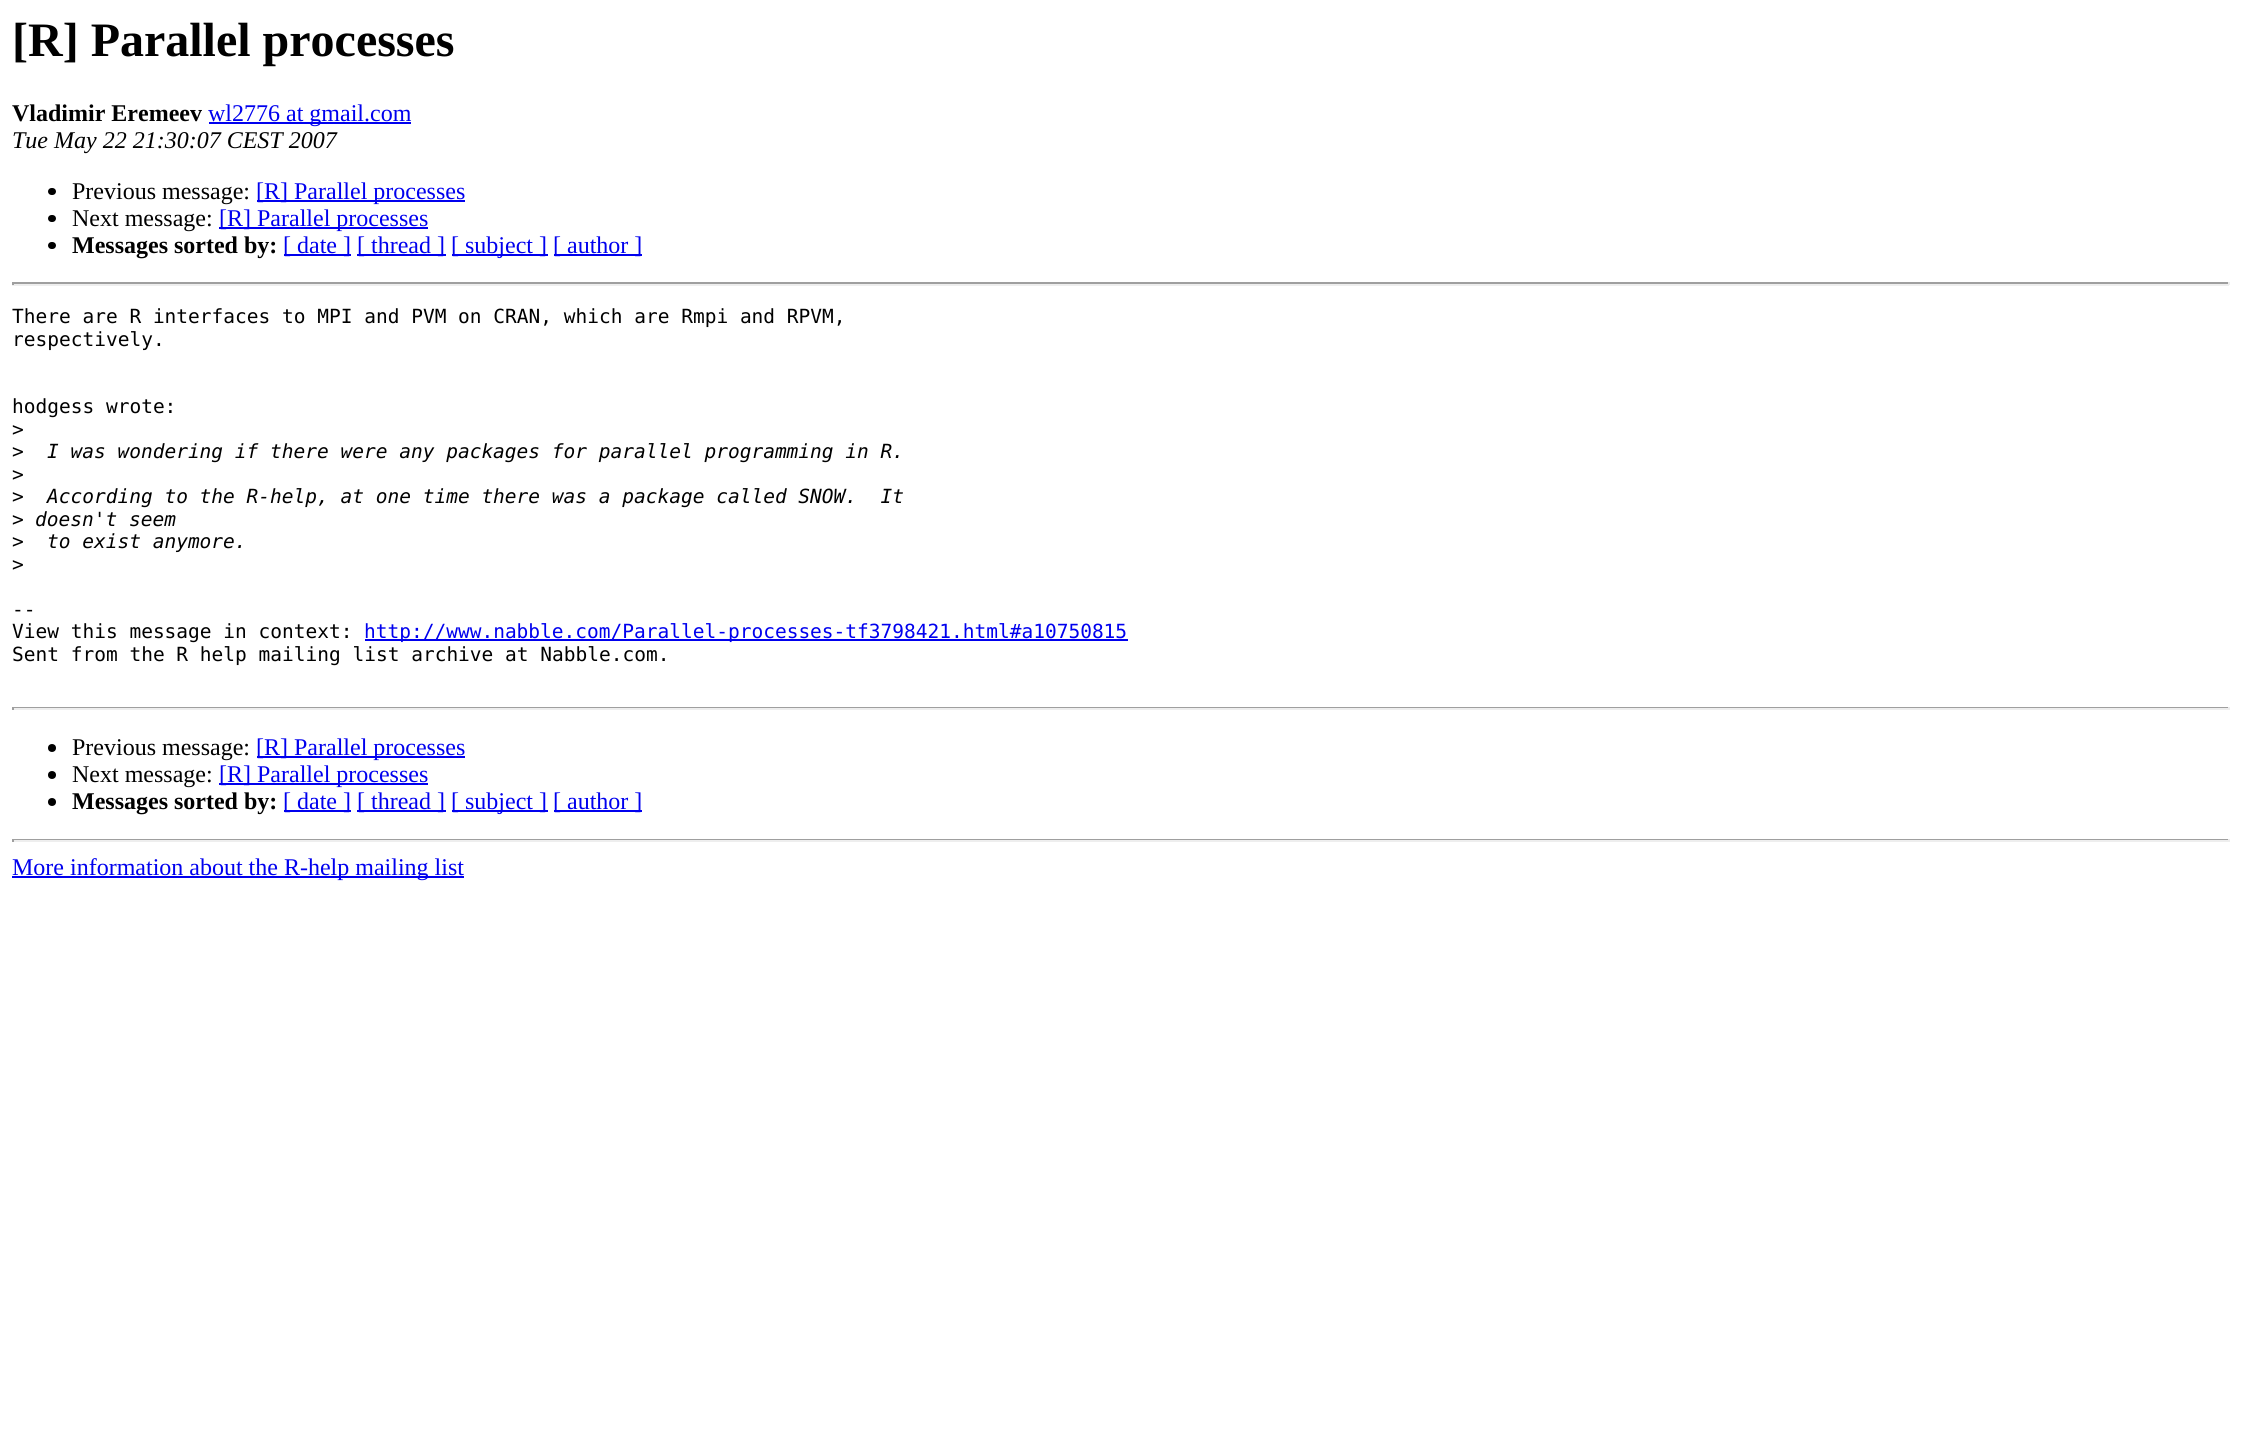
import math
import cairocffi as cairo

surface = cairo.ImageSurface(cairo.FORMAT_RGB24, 2241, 1434)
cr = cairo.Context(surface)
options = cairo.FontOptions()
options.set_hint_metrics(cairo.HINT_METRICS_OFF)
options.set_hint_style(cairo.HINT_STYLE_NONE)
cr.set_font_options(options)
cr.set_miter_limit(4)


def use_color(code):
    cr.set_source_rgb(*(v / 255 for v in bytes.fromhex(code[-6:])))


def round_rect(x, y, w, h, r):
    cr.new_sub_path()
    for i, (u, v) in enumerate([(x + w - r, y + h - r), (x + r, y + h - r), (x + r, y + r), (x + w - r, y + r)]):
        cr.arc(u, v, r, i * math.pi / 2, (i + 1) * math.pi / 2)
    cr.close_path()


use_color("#ffffff")
cr.paint()
cr.select_font_face("Liberation Serif", cairo.FONT_SLANT_NORMAL, cairo.FONT_WEIGHT_BOLD)
cr.set_font_size(48)
use_color("#000000")
cr.move_to(12, 56)
cr.show_text("[R] Parallel processes")
cr.set_font_size(24)
cr.move_to(12, 121)
cr.show_text("Vladimir Eremeev")
use_color("#0000ee")
cr.rectangle(209, 122, 202, 2)
cr.fill()
cr.select_font_face("Liberation Serif")
cr.move_to(208, 121)
cr.show_text("wl2776 at gmail.com")
cr.select_font_face("Liberation Serif", cairo.FONT_SLANT_ITALIC)
use_color("#000000")
cr.move_to(12, 148)
cr.show_text("Tue May 22 21:30:07 CEST 2007")
round_rect(48, 188, 8, 7, 3.5)
cr.fill()
cr.select_font_face("Liberation Serif")
cr.move_to(72, 199)
cr.show_text("Previous message:")
use_color("#0000ee")
cr.rectangle(257, 200, 208, 2)
cr.fill()
cr.move_to(256, 199)
cr.show_text("[R] Parallel processes")
use_color("#000000")
round_rect(48, 215, 8, 7, 3.5)
cr.fill()
cr.move_to(72, 226)
cr.show_text("Next message:")
use_color("#0000ee")
cr.rectangle(219, 227, 209, 2)
cr.fill()
cr.move_to(219, 226)
cr.show_text("[R] Parallel processes")
use_color("#000000")
round_rect(48, 242, 8, 7, 3.5)
cr.fill()
cr.select_font_face("Liberation Serif", cairo.FONT_SLANT_NORMAL, cairo.FONT_WEIGHT_BOLD)
cr.move_to(72, 253)
cr.show_text("Messages sorted by:")
use_color("#0000ee")
cr.rectangle(284, 254, 67, 2)
cr.fill()
cr.select_font_face("Liberation Serif")
cr.move_to(283, 253)
cr.show_text("[ date ]")
cr.rectangle(357, 254, 89, 2)
cr.fill()
cr.move_to(357, 253)
cr.show_text("[ thread ]")
cr.rectangle(452, 254, 96, 2)
cr.fill()
cr.move_to(451, 253)
cr.show_text("[ subject ]")
cr.rectangle(554, 254, 88, 2)
cr.fill()
cr.move_to(553, 253)
cr.show_text("[ author ]")
use_color("#9f9f9f")
cr.rectangle(12, 282, 2217, 2)
cr.fill()
use_color("#eeeeee")
cr.rectangle(2228, 282, 2, 3)
cr.fill()
cr.rectangle(12, 284, 2217, 2)
cr.fill()
use_color("#9f9f9f")
cr.rectangle(12, 282, 2, 3)
cr.fill()
cr.select_font_face("DejaVu Sans Mono")
cr.set_font_size(19.5)
use_color("#000000")
cr.move_to(12, 323)
cr.show_text("There are R interfaces to MPI and PVM on CRAN, which are Rmpi and RPVM,")
cr.move_to(12, 346)
cr.show_text("respectively.")
cr.move_to(12, 413)
cr.show_text("hodgess wrote:")
cr.move_to(12, 436)
cr.show_text(">")
cr.move_to(12, 458)
cr.show_text(">")
cr.select_font_face("DejaVu Sans Mono", cairo.FONT_SLANT_ITALIC)
cr.move_to(47, 458)
cr.show_text("I was wondering if there were any packages for parallel programming in R.")
cr.select_font_face("DejaVu Sans Mono")
cr.move_to(12, 481)
cr.show_text(">")
cr.move_to(12, 503)
cr.show_text(">")
cr.select_font_face("DejaVu Sans Mono", cairo.FONT_SLANT_ITALIC)
cr.move_to(47, 503)
cr.show_text("According to the R-help, at one time there was a package called SNOW.  It")
cr.select_font_face("DejaVu Sans Mono")
cr.move_to(12, 526)
cr.show_text(">")
cr.select_font_face("DejaVu Sans Mono", cairo.FONT_SLANT_ITALIC)
cr.move_to(35, 526)
cr.show_text("doesn't seem")
cr.select_font_face("DejaVu Sans Mono")
cr.move_to(12, 548)
cr.show_text(">")
cr.select_font_face("DejaVu Sans Mono", cairo.FONT_SLANT_ITALIC)
cr.move_to(47, 548)
cr.show_text("to exist anymore.")
cr.select_font_face("DejaVu Sans Mono")
cr.move_to(12, 571)
cr.show_text(">")
cr.move_to(12, 616)
cr.show_text("--")
cr.move_to(12, 638)
cr.show_text("View this message in context:")
use_color("#0000ee")
cr.rectangle(365, 639, 763, 2)
cr.fill()
cr.move_to(364, 638)
cr.show_text("http://www.nabble.com/Parallel-processes-tf3798421.html#a10750815")
use_color("#000000")
cr.move_to(12, 661)
cr.show_text("Sent from the R help mailing list archive at Nabble.com.")
use_color("#9f9f9f")
cr.rectangle(12, 707, 2217, 1)
cr.fill()
use_color("#eeeeee")
cr.rectangle(2228, 707, 2, 3)
cr.fill()
cr.rectangle(12, 708, 2217, 2)
cr.fill()
use_color("#9f9f9f")
cr.rectangle(12, 707, 2, 3)
cr.fill()
use_color("#000000")
cr.arc(52, 748, 4, 0, 2 * math.pi)
cr.fill()
cr.select_font_face("Liberation Serif")
cr.set_font_size(24)
cr.move_to(72, 755)
cr.show_text("Previous message:")
use_color("#0000ee")
cr.rectangle(257, 756, 208, 2)
cr.fill()
cr.move_to(256, 755)
cr.show_text("[R] Parallel processes")
use_color("#000000")
cr.new_path()
cr.arc(52, 775, 4, 0, 2 * math.pi)
cr.fill()
cr.move_to(72, 782)
cr.show_text("Next message:")
use_color("#0000ee")
cr.rectangle(219, 783, 209, 2)
cr.fill()
cr.move_to(219, 782)
cr.show_text("[R] Parallel processes")
use_color("#000000")
cr.new_path()
cr.arc(52, 802, 4, 0, 2 * math.pi)
cr.fill()
cr.select_font_face("Liberation Serif", cairo.FONT_SLANT_NORMAL, cairo.FONT_WEIGHT_BOLD)
cr.move_to(72, 809)
cr.show_text("Messages sorted by:")
use_color("#0000ee")
cr.rectangle(284, 810, 67, 2)
cr.fill()
cr.select_font_face("Liberation Serif")
cr.move_to(283, 809)
cr.show_text("[ date ]")
cr.rectangle(357, 810, 89, 2)
cr.fill()
cr.move_to(357, 809)
cr.show_text("[ thread ]")
cr.rectangle(452, 810, 96, 2)
cr.fill()
cr.move_to(451, 809)
cr.show_text("[ subject ]")
cr.rectangle(554, 810, 88, 2)
cr.fill()
cr.move_to(553, 809)
cr.show_text("[ author ]")
use_color("#9f9f9f")
cr.rectangle(12, 839, 2217, 1)
cr.fill()
use_color("#eeeeee")
cr.rectangle(2228, 839, 2, 3)
cr.fill()
cr.rectangle(12, 840, 2217, 2)
cr.fill()
use_color("#9f9f9f")
cr.rectangle(12, 839, 2, 3)
cr.fill()
use_color("#0000ee")
cr.rectangle(12, 876, 452, 2)
cr.fill()
cr.move_to(12, 875)
cr.show_text("More information about the R-help mailing list")
surface.write_to_png("result.png")
